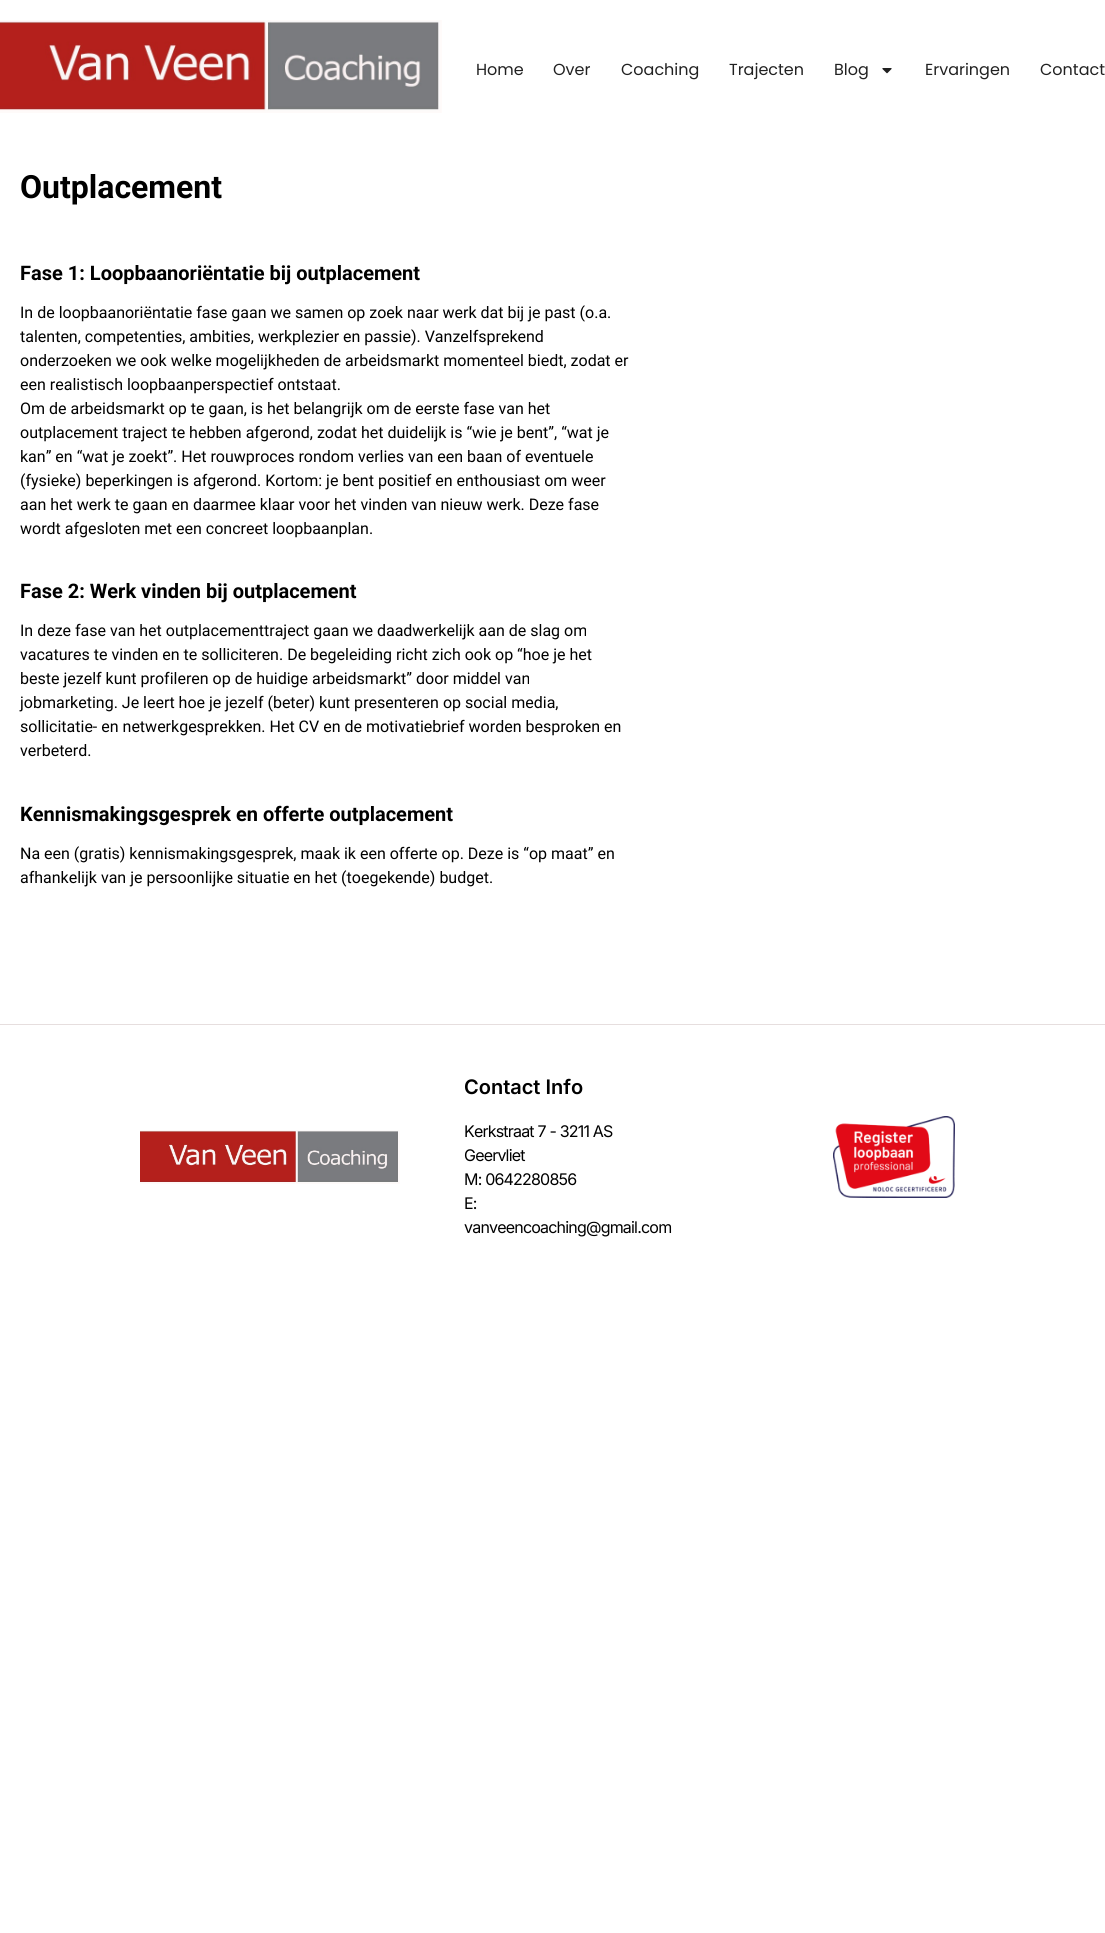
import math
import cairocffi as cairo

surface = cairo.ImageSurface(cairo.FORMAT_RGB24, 1105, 1933)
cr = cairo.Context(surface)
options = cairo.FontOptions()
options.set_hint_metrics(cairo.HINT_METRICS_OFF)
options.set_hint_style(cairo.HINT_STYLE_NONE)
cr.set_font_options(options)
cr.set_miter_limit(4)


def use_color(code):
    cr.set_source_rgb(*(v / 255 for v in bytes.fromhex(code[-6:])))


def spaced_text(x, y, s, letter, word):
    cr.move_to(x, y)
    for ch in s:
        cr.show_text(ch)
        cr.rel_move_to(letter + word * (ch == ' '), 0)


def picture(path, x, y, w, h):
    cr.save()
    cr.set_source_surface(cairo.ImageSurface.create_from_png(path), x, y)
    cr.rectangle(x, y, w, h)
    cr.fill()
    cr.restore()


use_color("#ffffff")
cr.paint()
picture("img1.png", 0, 20, 442, 93)
cr.select_font_face("Poppins")
cr.set_font_size(16)
use_color("#212121")
cr.move_to(476, 75)
cr.show_text("Home")
cr.move_to(553, 75)
cr.show_text("Over")
cr.move_to(621, 75)
cr.show_text("Coaching")
cr.move_to(729, 75)
cr.show_text("Trajecten")
cr.move_to(834, 75)
cr.show_text("Blog")
picture("img2.png", 882, 68, 10, 6)
cr.move_to(925, 75)
cr.show_text("Ervaringen")
cr.move_to(1040, 75)
cr.show_text("Contact")
cr.select_font_face("Roboto", cairo.FONT_SLANT_NORMAL, cairo.FONT_WEIGHT_BOLD)
cr.set_font_size(32)
use_color("#000000")
cr.move_to(20, 198)
cr.show_text("Outplacement")
cr.set_font_size(20)
cr.move_to(20, 280)
cr.show_text("Fase 1: Loopbaanoriëntatie bij outplacement")
cr.select_font_face("Roboto")
cr.set_font_size(16)
cr.move_to(20, 318)
cr.show_text("In de loopbaanoriëntatie fase gaan we samen op zoek naar werk dat bij je past (o.a.")
cr.move_to(20, 342)
cr.show_text("talenten, competenties, ambities, werkplezier en passie). Vanzelfsprekend")
cr.move_to(20, 366)
cr.show_text("onderzoeken we ook welke mogelijkheden de arbeidsmarkt momenteel biedt, zodat er")
cr.move_to(20, 390)
cr.show_text("een realistisch loopbaanperspectief ontstaat.")
cr.move_to(20, 414)
cr.show_text("Om de arbeidsmarkt op te gaan, is het belangrijk om de eerste fase van het")
cr.move_to(20, 438)
cr.show_text("outplacement traject te hebben afgerond, zodat het duidelijk is “wie je bent”, “wat je")
cr.move_to(20, 462)
cr.show_text("kan” en “wat je zoekt”. Het rouwproces rondom verlies van een baan of eventuele")
cr.move_to(20, 486)
cr.show_text("(fysieke) beperkingen is afgerond. Kortom: je bent positief en enthousiast om weer")
cr.move_to(20, 510)
cr.show_text("aan het werk te gaan en daarmee klaar voor het vinden van nieuw werk. Deze fase")
cr.move_to(20, 534)
cr.show_text("wordt afgesloten met een concreet loopbaanplan.")
cr.select_font_face("Roboto", cairo.FONT_SLANT_NORMAL, cairo.FONT_WEIGHT_BOLD)
cr.set_font_size(20)
cr.move_to(20, 598)
cr.show_text("Fase 2: Werk vinden bij outplacement")
cr.select_font_face("Roboto")
cr.set_font_size(16)
cr.move_to(20, 636)
cr.show_text("In deze fase van het outplacementtraject gaan we daadwerkelijk aan de slag om")
cr.move_to(20, 660)
cr.show_text("vacatures te vinden en te solliciteren. De begeleiding richt zich ook op “hoe je het")
cr.move_to(20, 684)
cr.show_text("beste jezelf kunt profileren op de huidige arbeidsmarkt” door middel van")
cr.move_to(20, 708)
cr.show_text("jobmarketing. Je leert hoe je jezelf (beter) kunt presenteren op social media,")
cr.move_to(20, 732)
cr.show_text("sollicitatie- en netwerkgesprekken. Het CV en de motivatiebrief worden besproken en")
cr.move_to(20, 756)
cr.show_text("verbeterd.")
cr.select_font_face("Roboto", cairo.FONT_SLANT_NORMAL, cairo.FONT_WEIGHT_BOLD)
cr.set_font_size(20)
cr.move_to(20, 821)
cr.show_text("Kennismakingsgesprek en offerte outplacement")
cr.select_font_face("Roboto")
cr.set_font_size(16)
cr.move_to(20, 859)
cr.show_text("Na een (gratis) kennismakingsgesprek, maak ik een offerte op. Deze is “op maat” en")
cr.move_to(20, 883)
cr.show_text("afhankelijk van je persoonlijke situatie en het (toegekende) budget.")
use_color("#e6dede")
cr.rectangle(0, 1024, 1105, 1)
cr.fill()
picture("img3.png", 140, 1130, 260, 54)
cr.select_font_face("Inter SemiBold")
cr.set_font_size(20)
use_color("#000000")
cr.move_to(464, 1094)
cr.show_text("Contact Info")
cr.select_font_face("Inter")
cr.set_font_size(16)
spaced_text(464, 1137, "Kerkstraat 7 - 3211 AS", -0.8, 0)
spaced_text(464, 1161, "Geervliet", -0.8, 0)
spaced_text(464, 1185, "M: 0642280856", -0.8, 0)
spaced_text(464, 1209, "E:", -0.8, 0)
spaced_text(464, 1233, "vanveencoaching@gmail.com", -0.8, 0)
picture("img4.png", 833, 1116, 122, 82)
surface.write_to_png("result.png")
